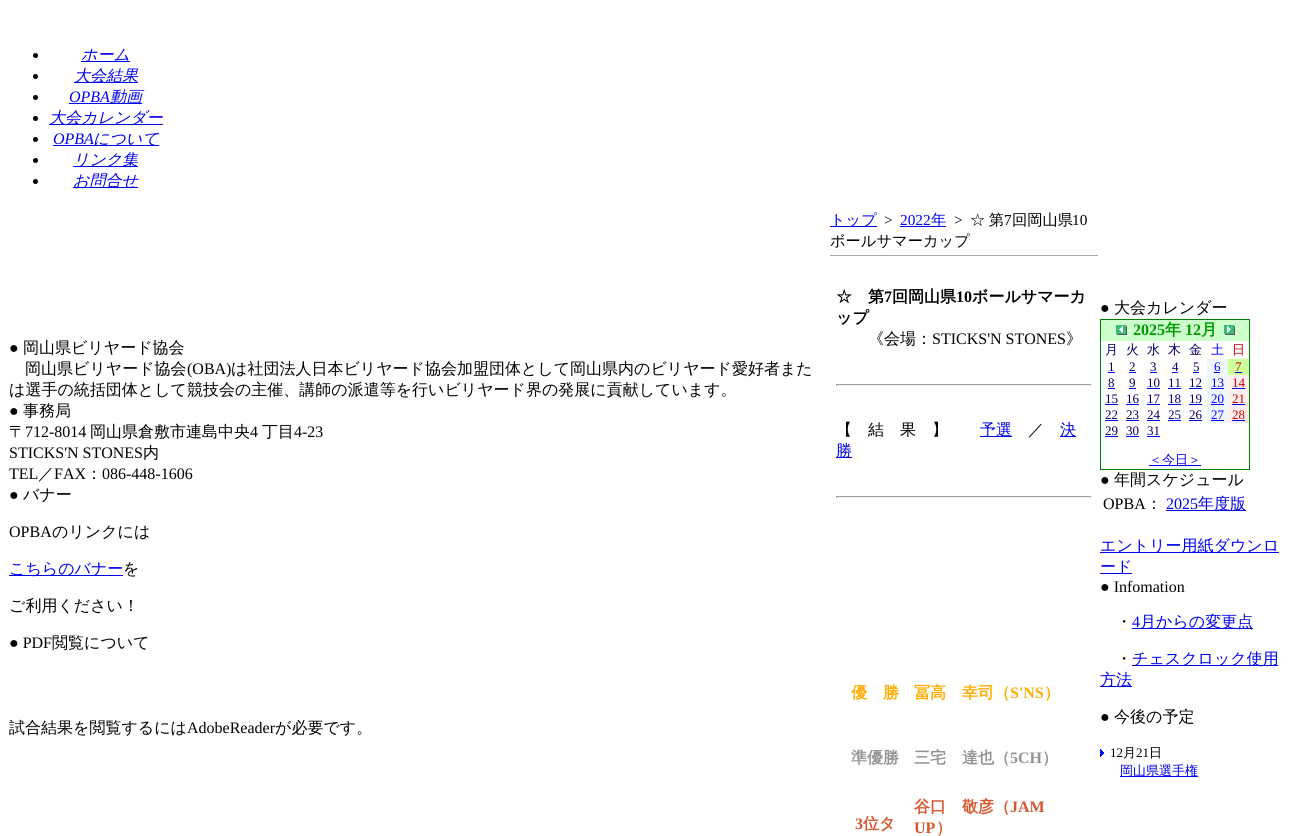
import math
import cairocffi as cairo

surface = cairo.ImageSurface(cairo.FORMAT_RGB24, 1289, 836)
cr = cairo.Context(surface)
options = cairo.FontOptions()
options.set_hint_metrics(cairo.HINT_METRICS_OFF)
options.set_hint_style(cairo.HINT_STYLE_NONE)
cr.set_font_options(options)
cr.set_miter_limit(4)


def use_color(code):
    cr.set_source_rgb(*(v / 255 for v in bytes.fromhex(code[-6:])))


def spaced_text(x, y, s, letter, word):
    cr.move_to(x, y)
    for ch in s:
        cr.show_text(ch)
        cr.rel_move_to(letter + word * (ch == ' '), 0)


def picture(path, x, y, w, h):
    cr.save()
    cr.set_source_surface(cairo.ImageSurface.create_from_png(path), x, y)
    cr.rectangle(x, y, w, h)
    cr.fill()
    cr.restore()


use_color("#ffffff")
cr.paint()
use_color("#000000")
cr.arc(35.5, 55.5, 2.5, 0, 2 * math.pi)
cr.fill()
use_color("#0000ee")
cr.rectangle(81, 61, 49, 1)
cr.fill()
cr.select_font_face("WenQuanYi Zen Hei Medium", cairo.FONT_SLANT_ITALIC)
cr.set_font_size(16)
cr.move_to(81, 60)
cr.show_text("ホーム")
use_color("#000000")
cr.new_path()
cr.arc(35.5, 76.5, 2.5, 0, 2 * math.pi)
cr.fill()
use_color("#0000ee")
cr.rectangle(74, 82, 64, 1)
cr.fill()
cr.move_to(74, 81)
cr.show_text("大会結果")
use_color("#000000")
cr.new_path()
cr.arc(35.5, 97.5, 2.5, 0, 2 * math.pi)
cr.fill()
cr.select_font_face("Liberation Serif", cairo.FONT_SLANT_ITALIC)
use_color("#0000ee")
cr.move_to(69, 102)
cr.show_text("OPBA")
cr.rectangle(69, 103, 73, 1)
cr.fill()
cr.select_font_face("WenQuanYi Zen Hei Medium", cairo.FONT_SLANT_ITALIC)
cr.move_to(110, 102)
cr.show_text("動画")
use_color("#000000")
cr.new_path()
cr.arc(35.5, 118.5, 2.5, 0, 2 * math.pi)
cr.fill()
use_color("#0000ee")
cr.rectangle(49, 124, 114, 1)
cr.fill()
cr.move_to(49, 123)
cr.show_text("大会カレンダー")
use_color("#000000")
cr.new_path()
cr.arc(35.5, 139.5, 2.5, 0, 2 * math.pi)
cr.fill()
cr.select_font_face("Liberation Serif", cairo.FONT_SLANT_ITALIC)
use_color("#0000ee")
cr.move_to(53, 144)
cr.show_text("OPBA")
cr.rectangle(53, 145, 106, 1)
cr.fill()
cr.select_font_face("WenQuanYi Zen Hei Medium", cairo.FONT_SLANT_ITALIC)
cr.move_to(93, 144)
cr.show_text("について")
use_color("#000000")
cr.new_path()
cr.arc(35.5, 160.5, 2.5, 0, 2 * math.pi)
cr.fill()
use_color("#0000ee")
cr.rectangle(73, 166, 65, 1)
cr.fill()
cr.move_to(73, 165)
cr.show_text("リンク集")
use_color("#000000")
cr.new_path()
cr.arc(35.5, 181.5, 2.5, 0, 2 * math.pi)
cr.fill()
use_color("#0000ee")
cr.rectangle(73, 187, 65, 1)
cr.fill()
cr.move_to(73, 186)
cr.show_text("お問合せ")
cr.select_font_face("Liberation Serif")
use_color("#000000")
cr.move_to(9, 353)
cr.show_text("●")
cr.select_font_face("WenQuanYi Zen Hei Medium")
cr.move_to(23, 353)
cr.show_text("岡山県ビリヤード協会")
cr.move_to(25, 374)
cr.show_text("岡山県ビリヤード協会")
cr.select_font_face("Liberation Serif")
cr.move_to(187, 374)
cr.show_text("(OBA)")
cr.select_font_face("WenQuanYi Zen Hei Medium")
cr.move_to(231, 374)
cr.show_text("は社団法人日本ビリヤード協会加盟団体として岡山県内のビリヤード愛好者また")
cr.move_to(9, 395)
cr.show_text("は選手の統括団体として競技会の主催、講師の派遣等を行いビリヤード界の発展に貢献しています。")
cr.select_font_face("Liberation Serif")
cr.move_to(9, 416)
cr.show_text("●")
cr.select_font_face("WenQuanYi Zen Hei Medium")
cr.move_to(23, 416)
cr.show_text("事務局")
cr.move_to(9, 437)
cr.show_text("〒")
cr.select_font_face("Liberation Serif")
cr.move_to(25, 437)
cr.show_text("712-8014")
cr.select_font_face("WenQuanYi Zen Hei Medium")
cr.move_to(90, 437)
cr.show_text("岡山県倉敷市連島中央")
cr.select_font_face("Liberation Serif")
cr.move_to(250, 437)
cr.show_text("4")
cr.select_font_face("WenQuanYi Zen Hei Medium")
cr.move_to(262, 437)
cr.show_text("丁目")
cr.select_font_face("Liberation Serif")
cr.move_to(294, 437)
cr.show_text("4-23")
cr.move_to(9, 458)
cr.show_text("STICKS'N STONES")
cr.select_font_face("WenQuanYi Zen Hei Medium")
cr.move_to(143, 458)
cr.show_text("内")
cr.select_font_face("Liberation Serif")
cr.move_to(9, 479)
cr.show_text("TEL")
cr.select_font_face("WenQuanYi Zen Hei Medium")
cr.move_to(38, 479)
cr.show_text("／")
cr.select_font_face("Liberation Serif")
cr.move_to(54, 479)
cr.show_text("FAX")
cr.select_font_face("WenQuanYi Zen Hei Medium")
cr.move_to(86, 479)
cr.show_text("：")
cr.select_font_face("Liberation Serif")
cr.move_to(102, 479)
cr.show_text("086-448-1606")
cr.move_to(9, 500)
cr.show_text("●")
cr.select_font_face("WenQuanYi Zen Hei Medium")
cr.move_to(23, 500)
cr.show_text("バナー")
cr.select_font_face("Liberation Serif")
cr.move_to(9, 537)
cr.show_text("OPBA")
cr.select_font_face("WenQuanYi Zen Hei Medium")
cr.move_to(52, 537)
cr.show_text("のリンクには")
use_color("#0000ee")
cr.rectangle(9, 575, 114, 1)
cr.fill()
cr.move_to(9, 574)
cr.show_text("こちらのバナー")
use_color("#000000")
cr.move_to(123, 574)
cr.show_text("を")
cr.move_to(9, 611)
cr.show_text("ご利用ください！")
cr.select_font_face("Liberation Serif")
cr.move_to(9, 648)
cr.show_text("● PDF")
cr.select_font_face("WenQuanYi Zen Hei Medium")
cr.move_to(52, 648)
cr.show_text("閲覧について")
cr.move_to(9, 733)
cr.show_text("試合結果を閲覧するには")
cr.select_font_face("Liberation Serif")
cr.move_to(187, 733)
cr.show_text("AdobeReader")
cr.select_font_face("WenQuanYi Zen Hei Medium")
cr.move_to(275, 733)
cr.show_text("が必要です。")
use_color("#aaaaaa")
cr.rectangle(830, 255, 268, 1)
cr.fill()
use_color("#0000ee")
cr.rectangle(830, 226, 47, 1)
cr.fill()
cr.set_font_size(15.25)
cr.move_to(830, 225)
cr.show_text("トップ")
cr.select_font_face("Liberation Serif")
use_color("#000000")
cr.move_to(884, 225)
cr.show_text(">")
use_color("#0000ee")
cr.move_to(900, 225)
cr.show_text("2022")
cr.rectangle(900, 226, 46, 1)
cr.fill()
cr.select_font_face("WenQuanYi Zen Hei Medium")
cr.move_to(931, 225)
cr.show_text("年")
cr.select_font_face("Liberation Serif")
use_color("#000000")
cr.move_to(954, 225)
cr.show_text(">")
cr.select_font_face("WenQuanYi Zen Hei Medium")
spaced_text(970, 225, "☆ 第", 0, -1)
cr.select_font_face("Liberation Serif")
cr.move_to(1004, 225)
cr.show_text("7")
cr.select_font_face("WenQuanYi Zen Hei Medium")
cr.move_to(1012, 225)
cr.show_text("回岡山県")
cr.select_font_face("Liberation Serif")
cr.move_to(1072, 225)
cr.show_text("10")
cr.select_font_face("WenQuanYi Zen Hei Medium")
cr.move_to(830, 246)
cr.show_text("ボールサマーカップ")
cr.select_font_face("WenQuanYi Zen Hei", cairo.FONT_SLANT_NORMAL, cairo.FONT_WEIGHT_BOLD)
cr.set_font_size(16)
cr.move_to(836, 302)
cr.show_text("☆　第")
cr.select_font_face("Liberation Serif", cairo.FONT_SLANT_NORMAL, cairo.FONT_WEIGHT_BOLD)
cr.move_to(884, 302)
cr.show_text("7")
cr.select_font_face("WenQuanYi Zen Hei", cairo.FONT_SLANT_NORMAL, cairo.FONT_WEIGHT_BOLD)
cr.move_to(892, 302)
cr.show_text("回岡山県")
cr.select_font_face("Liberation Serif", cairo.FONT_SLANT_NORMAL, cairo.FONT_WEIGHT_BOLD)
cr.move_to(956, 302)
cr.show_text("10")
cr.select_font_face("WenQuanYi Zen Hei", cairo.FONT_SLANT_NORMAL, cairo.FONT_WEIGHT_BOLD)
cr.move_to(972, 302)
cr.show_text("ボールサマーカ")
cr.move_to(836, 323)
cr.show_text("ップ")
cr.select_font_face("WenQuanYi Zen Hei Medium")
cr.move_to(868, 344)
cr.show_text("《会場：")
cr.select_font_face("Liberation Serif")
cr.move_to(932, 344)
cr.show_text("STICKS'N STONES")
cr.select_font_face("WenQuanYi Zen Hei Medium")
cr.move_to(1066, 344)
cr.show_text("》")
use_color("#9f9f9f")
cr.rectangle(836, 384, 256, 1)
cr.fill()
use_color("#eeeeee")
cr.rectangle(1091, 384, 1, 2)
cr.fill()
cr.rectangle(836, 385, 256, 1)
cr.fill()
use_color("#9f9f9f")
cr.rectangle(836, 384, 1, 2)
cr.fill()
use_color("#000000")
cr.move_to(836, 435)
cr.show_text("【　結　果　】")
use_color("#0000ee")
cr.rectangle(980, 436, 32, 1)
cr.fill()
cr.move_to(980, 435)
cr.show_text("予選")
use_color("#000000")
cr.move_to(1028, 435)
cr.show_text("／")
use_color("#0000ee")
cr.rectangle(1060, 436, 16, 1)
cr.fill()
cr.move_to(1060, 435)
cr.show_text("決")
cr.rectangle(836, 457, 16, 1)
cr.fill()
cr.move_to(836, 456)
cr.show_text("勝")
use_color("#9f9f9f")
cr.rectangle(836, 496, 256, 1)
cr.fill()
use_color("#eeeeee")
cr.rectangle(1091, 496, 1, 2)
cr.fill()
cr.rectangle(836, 497, 256, 1)
cr.fill()
use_color("#9f9f9f")
cr.rectangle(836, 496, 1, 2)
cr.fill()
cr.select_font_face("WenQuanYi Zen Hei", cairo.FONT_SLANT_NORMAL, cairo.FONT_WEIGHT_BOLD)
use_color("#ffac00")
cr.move_to(851, 698)
cr.show_text("優　勝")
cr.move_to(914, 698)
cr.show_text("冨高　幸司（")
cr.select_font_face("Liberation Serif", cairo.FONT_SLANT_NORMAL, cairo.FONT_WEIGHT_BOLD)
cr.move_to(1010, 698)
cr.show_text("S'NS")
cr.select_font_face("WenQuanYi Zen Hei", cairo.FONT_SLANT_NORMAL, cairo.FONT_WEIGHT_BOLD)
cr.move_to(1044, 698)
cr.show_text("）")
use_color("#939393")
cr.move_to(851, 763)
cr.show_text("準優勝")
cr.move_to(914, 763)
cr.show_text("三宅　達也（")
cr.select_font_face("Liberation Serif", cairo.FONT_SLANT_NORMAL, cairo.FONT_WEIGHT_BOLD)
cr.move_to(1010, 763)
cr.show_text("5CH")
cr.select_font_face("WenQuanYi Zen Hei", cairo.FONT_SLANT_NORMAL, cairo.FONT_WEIGHT_BOLD)
cr.move_to(1042, 763)
cr.show_text("）")
cr.select_font_face("Liberation Serif", cairo.FONT_SLANT_NORMAL, cairo.FONT_WEIGHT_BOLD)
use_color("#d7562b")
cr.move_to(855, 829)
cr.show_text("3")
cr.select_font_face("WenQuanYi Zen Hei", cairo.FONT_SLANT_NORMAL, cairo.FONT_WEIGHT_BOLD)
cr.move_to(863, 829)
cr.show_text("位タ")
cr.move_to(914, 812)
cr.show_text("谷口　敬彦（")
cr.select_font_face("Liberation Serif", cairo.FONT_SLANT_NORMAL, cairo.FONT_WEIGHT_BOLD)
cr.move_to(1010, 812)
cr.show_text("JAM")
cr.move_to(914, 833)
cr.show_text("UP")
cr.select_font_face("WenQuanYi Zen Hei", cairo.FONT_SLANT_NORMAL, cairo.FONT_WEIGHT_BOLD)
cr.move_to(936, 833)
cr.show_text("）")
cr.select_font_face("Liberation Serif")
use_color("#000000")
cr.move_to(1100, 313)
cr.show_text("●")
cr.select_font_face("WenQuanYi Zen Hei Medium")
cr.move_to(1114, 313)
cr.show_text("大会カレンダー")
cr.rectangle(1100.5, 319.5, 149, 150)
use_color("#008000")
cr.set_line_width(1)
cr.stroke()
use_color("#ccffcc")
cr.rectangle(1101, 320, 148, 21)
cr.fill()
picture("img1.png", 1116, 325, 11, 10)
cr.select_font_face("Liberation Serif", cairo.FONT_SLANT_NORMAL, cairo.FONT_WEIGHT_BOLD)
use_color("#009900")
cr.move_to(1133, 335)
cr.show_text("2025")
cr.select_font_face("WenQuanYi Zen Hei", cairo.FONT_SLANT_NORMAL, cairo.FONT_WEIGHT_BOLD)
cr.move_to(1165, 335)
cr.show_text("年")
cr.select_font_face("Liberation Serif", cairo.FONT_SLANT_NORMAL, cairo.FONT_WEIGHT_BOLD)
cr.move_to(1185, 335)
cr.show_text("12")
cr.select_font_face("WenQuanYi Zen Hei", cairo.FONT_SLANT_NORMAL, cairo.FONT_WEIGHT_BOLD)
cr.move_to(1201, 335)
cr.show_text("月")
picture("img2.png", 1224, 325, 11, 10)
cr.select_font_face("WenQuanYi Zen Hei Medium")
cr.set_font_size(13)
use_color("#000066")
cr.move_to(1105, 354)
cr.show_text("月")
cr.move_to(1126, 354)
cr.show_text("火")
cr.move_to(1147, 354)
cr.show_text("水")
cr.move_to(1168, 354)
cr.show_text("木")
cr.move_to(1189, 354)
cr.show_text("金")
use_color("#0000ff")
cr.move_to(1211, 354)
cr.show_text("土")
use_color("#cc0000")
cr.move_to(1232, 354)
cr.show_text("日")
cr.select_font_face("Liberation Serif")
use_color("#000066")
cr.move_to(1108, 371)
cr.show_text("1")
use_color("#0000ee")
cr.rectangle(1108, 372, 7, 1)
cr.fill()
use_color("#000066")
cr.move_to(1129, 371)
cr.show_text("2")
use_color("#0000ee")
cr.rectangle(1129, 372, 7, 1)
cr.fill()
use_color("#000066")
cr.move_to(1150, 371)
cr.show_text("3")
use_color("#0000ee")
cr.rectangle(1150, 372, 7, 1)
cr.fill()
use_color("#000066")
cr.move_to(1172, 371)
cr.show_text("4")
use_color("#0000ee")
cr.rectangle(1172, 372, 6, 1)
cr.fill()
use_color("#000066")
cr.move_to(1193, 371)
cr.show_text("5")
use_color("#0000ee")
cr.rectangle(1193, 372, 6, 1)
cr.fill()
use_color("#eef7ff")
cr.rectangle(1207, 359, 21, 64)
cr.fill()
use_color("#0000ff")
cr.move_to(1214, 371)
cr.show_text("6")
use_color("#0000ee")
cr.rectangle(1214, 372, 6, 1)
cr.fill()
use_color("#ccff99")
cr.rectangle(1228, 359, 21, 16)
cr.fill()
use_color("#cc0000")
cr.move_to(1235, 371)
cr.show_text("7")
use_color("#0000ee")
cr.rectangle(1235, 372, 7, 1)
cr.fill()
use_color("#000066")
cr.move_to(1108, 387)
cr.show_text("8")
use_color("#0000ee")
cr.rectangle(1108, 388, 7, 1)
cr.fill()
use_color("#000066")
cr.move_to(1129, 387)
cr.show_text("9")
use_color("#0000ee")
cr.rectangle(1129, 388, 7, 1)
cr.fill()
use_color("#000066")
cr.move_to(1147, 387)
cr.show_text("10")
use_color("#0000ee")
cr.rectangle(1147, 388, 13, 1)
cr.fill()
use_color("#000066")
cr.move_to(1168, 387)
cr.show_text("11")
use_color("#0000ee")
cr.rectangle(1168, 388, 13, 1)
cr.fill()
use_color("#000066")
cr.move_to(1189, 387)
cr.show_text("12")
use_color("#0000ee")
cr.rectangle(1189, 388, 13, 1)
cr.fill()
use_color("#0000ff")
cr.move_to(1211, 387)
cr.show_text("13")
use_color("#0000ee")
cr.rectangle(1211, 388, 13, 1)
cr.fill()
use_color("#ffeeee")
cr.rectangle(1228, 375, 21, 48)
cr.fill()
use_color("#cc0000")
cr.move_to(1232, 387)
cr.show_text("14")
use_color("#0000ee")
cr.rectangle(1232, 388, 13, 1)
cr.fill()
use_color("#000066")
cr.move_to(1105, 403)
cr.show_text("15")
use_color("#0000ee")
cr.rectangle(1105, 404, 13, 1)
cr.fill()
use_color("#000066")
cr.move_to(1126, 403)
cr.show_text("16")
use_color("#0000ee")
cr.rectangle(1126, 404, 13, 1)
cr.fill()
use_color("#000066")
cr.move_to(1147, 403)
cr.show_text("17")
use_color("#0000ee")
cr.rectangle(1147, 404, 13, 1)
cr.fill()
use_color("#000066")
cr.move_to(1168, 403)
cr.show_text("18")
use_color("#0000ee")
cr.rectangle(1168, 404, 13, 1)
cr.fill()
use_color("#000066")
cr.move_to(1189, 403)
cr.show_text("19")
use_color("#0000ee")
cr.rectangle(1189, 404, 13, 1)
cr.fill()
use_color("#0000ff")
cr.move_to(1211, 403)
cr.show_text("20")
use_color("#0000ee")
cr.rectangle(1211, 404, 13, 1)
cr.fill()
use_color("#cc0000")
cr.move_to(1232, 403)
cr.show_text("21")
use_color("#0000ee")
cr.rectangle(1232, 404, 13, 1)
cr.fill()
use_color("#000066")
cr.move_to(1105, 419)
cr.show_text("22")
use_color("#0000ee")
cr.rectangle(1105, 420, 13, 1)
cr.fill()
use_color("#000066")
cr.move_to(1126, 419)
cr.show_text("23")
use_color("#0000ee")
cr.rectangle(1126, 420, 13, 1)
cr.fill()
use_color("#000066")
cr.move_to(1147, 419)
cr.show_text("24")
use_color("#0000ee")
cr.rectangle(1147, 420, 13, 1)
cr.fill()
use_color("#000066")
cr.move_to(1168, 419)
cr.show_text("25")
use_color("#0000ee")
cr.rectangle(1168, 420, 13, 1)
cr.fill()
use_color("#000066")
cr.move_to(1189, 419)
cr.show_text("26")
use_color("#0000ee")
cr.rectangle(1189, 420, 13, 1)
cr.fill()
use_color("#0000ff")
cr.move_to(1211, 419)
cr.show_text("27")
use_color("#0000ee")
cr.rectangle(1211, 420, 13, 1)
cr.fill()
use_color("#cc0000")
cr.move_to(1232, 419)
cr.show_text("28")
use_color("#0000ee")
cr.rectangle(1232, 420, 13, 1)
cr.fill()
use_color("#000066")
cr.move_to(1105, 435)
cr.show_text("29")
use_color("#0000ee")
cr.rectangle(1105, 436, 13, 1)
cr.fill()
use_color("#000066")
cr.move_to(1126, 435)
cr.show_text("30")
use_color("#0000ee")
cr.rectangle(1126, 436, 13, 1)
cr.fill()
use_color("#000066")
cr.move_to(1147, 435)
cr.show_text("31")
use_color("#0000ee")
cr.rectangle(1147, 436, 13, 1)
cr.fill()
cr.rectangle(1149, 465, 52, 1)
cr.fill()
cr.select_font_face("WenQuanYi Zen Hei Medium")
cr.move_to(1149, 464)
cr.show_text("＜今日＞")
cr.select_font_face("Liberation Serif")
cr.set_font_size(16)
use_color("#000000")
cr.move_to(1100, 485)
cr.show_text("●")
cr.select_font_face("WenQuanYi Zen Hei Medium")
cr.move_to(1114, 485)
cr.show_text("年間スケジュール")
cr.select_font_face("Liberation Serif")
cr.move_to(1103, 509)
cr.show_text("OPBA")
cr.select_font_face("WenQuanYi Zen Hei Medium")
cr.move_to(1146, 509)
cr.show_text("：")
cr.select_font_face("Liberation Serif")
use_color("#0000ee")
cr.move_to(1166, 509)
cr.show_text("2025")
cr.rectangle(1166, 510, 80, 1)
cr.fill()
cr.select_font_face("WenQuanYi Zen Hei Medium")
cr.move_to(1198, 509)
cr.show_text("年度版")
cr.rectangle(1100, 552, 179, 1)
cr.fill()
cr.move_to(1100, 551)
cr.show_text("エントリー用紙ダウンロ")
cr.rectangle(1100, 573, 32, 1)
cr.fill()
cr.move_to(1100, 572)
cr.show_text("ード")
cr.select_font_face("Liberation Serif")
use_color("#000000")
cr.move_to(1100, 592)
cr.show_text("● Infomation")
cr.select_font_face("WenQuanYi Zen Hei Medium")
cr.move_to(1116, 627)
cr.show_text("・")
cr.select_font_face("Liberation Serif")
use_color("#0000ee")
cr.move_to(1132, 627)
cr.show_text("4")
cr.rectangle(1132, 628, 121, 1)
cr.fill()
cr.select_font_face("WenQuanYi Zen Hei Medium")
cr.move_to(1140, 627)
cr.show_text("月からの変更点")
use_color("#000000")
cr.move_to(1116, 664)
cr.show_text("・")
use_color("#0000ee")
cr.rectangle(1132, 665, 146, 1)
cr.fill()
cr.move_to(1132, 664)
cr.show_text("チェスクロック使用")
cr.rectangle(1100, 686, 32, 1)
cr.fill()
cr.move_to(1100, 685)
cr.show_text("方法")
cr.select_font_face("Liberation Serif")
use_color("#000000")
cr.move_to(1100, 722)
cr.show_text("●")
cr.select_font_face("WenQuanYi Zen Hei Medium")
cr.move_to(1114, 722)
cr.show_text("今後の予定")
picture("img3.png", 1100, 749, 4, 8)
cr.select_font_face("Liberation Serif")
cr.set_font_size(13)
cr.move_to(1110, 757)
cr.show_text("12")
cr.select_font_face("WenQuanYi Zen Hei Medium")
cr.move_to(1123, 757)
cr.show_text("月")
cr.select_font_face("Liberation Serif")
cr.move_to(1136, 757)
cr.show_text("21")
cr.select_font_face("WenQuanYi Zen Hei Medium")
cr.move_to(1149, 757)
cr.show_text("日")
use_color("#0000ee")
cr.rectangle(1120, 776, 78, 1)
cr.fill()
cr.move_to(1120, 775)
cr.show_text("岡山県選手権")
surface.write_to_png("result.png")
